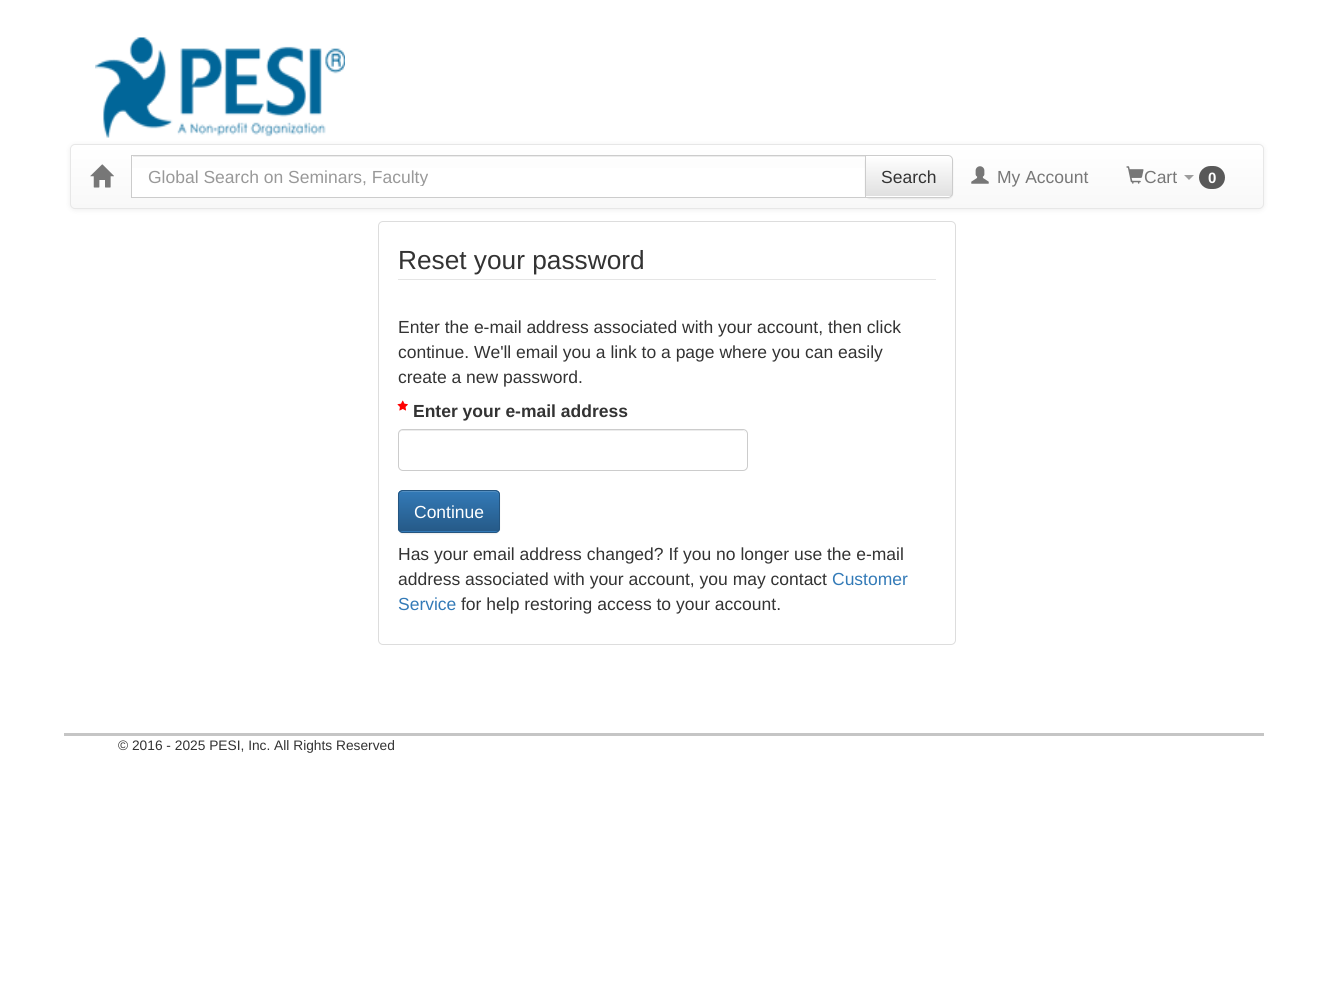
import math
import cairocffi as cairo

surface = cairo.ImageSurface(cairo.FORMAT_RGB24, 1327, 1003)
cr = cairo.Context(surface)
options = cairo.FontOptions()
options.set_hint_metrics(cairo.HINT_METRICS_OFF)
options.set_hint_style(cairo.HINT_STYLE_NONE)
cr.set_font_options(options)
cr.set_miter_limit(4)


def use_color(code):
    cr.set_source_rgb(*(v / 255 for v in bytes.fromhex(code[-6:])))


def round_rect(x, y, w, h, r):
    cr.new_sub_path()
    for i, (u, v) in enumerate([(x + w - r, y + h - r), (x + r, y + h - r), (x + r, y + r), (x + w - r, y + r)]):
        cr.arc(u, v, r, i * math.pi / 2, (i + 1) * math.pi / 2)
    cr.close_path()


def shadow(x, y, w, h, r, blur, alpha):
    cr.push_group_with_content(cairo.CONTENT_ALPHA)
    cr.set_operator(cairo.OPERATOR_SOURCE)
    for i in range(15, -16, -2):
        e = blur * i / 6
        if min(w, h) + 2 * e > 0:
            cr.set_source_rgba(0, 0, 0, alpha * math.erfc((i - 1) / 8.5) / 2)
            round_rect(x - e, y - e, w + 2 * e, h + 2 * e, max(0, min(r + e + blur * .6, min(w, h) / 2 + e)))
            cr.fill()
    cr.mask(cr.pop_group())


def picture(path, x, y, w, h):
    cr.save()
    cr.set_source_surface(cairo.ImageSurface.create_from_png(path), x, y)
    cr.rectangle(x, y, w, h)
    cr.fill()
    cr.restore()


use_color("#ffffff")
cr.paint()
picture("img1.png", 95, 37, 250, 101)
use_color("#000000")
shadow(70, 145, 1194, 65, 5, 3, 0.07)
cr.save()
round_rect(70, 144, 1194, 65, 5)
cr.clip()
gradient = cairo.LinearGradient(667, 145, 667, 208)
gradient.add_color_stop_rgba(0, 1, 1, 1, 1)
gradient.add_color_stop_rgba(1, 0.973, 0.973, 0.973, 1)
cr.set_source(gradient)
cr.rectangle(70, 145, 1194, 63)
cr.fill()
cr.restore()
round_rect(70.5, 144.5, 1193, 64, 4.5)
use_color("#e7e7e7")
cr.set_line_width(1)
cr.stroke()
picture("img2.png", 90, 164, 24, 24)
use_color("#ffffff")
cr.rectangle(132, 168, 733, 29)
cr.fill()
use_color("#ececec")
cr.rectangle(133, 156, 732, 1)
cr.fill()
cr.rectangle(131.5, 155.5, 734, 42)
use_color("#cccccc")
cr.stroke()
cr.save()
cr.rectangle(148, 166, 702, 20)
cr.clip()
cr.select_font_face("Liberation Sans")
cr.set_font_size(17.5)
use_color("#999999")
cr.move_to(148, 183)
cr.show_text("Global Search on Seminars, Faculty")
cr.restore()
use_color("#000000")
shadow(865, 156, 88, 43, 5, 0.5, 0.07)
use_color("#ffffff")
cr.new_path()
cr.move_to(865, 155)
cr.line_to(948, 155)
cr.curve_to(951, 155, 953, 157, 953, 160)
cr.line_to(953, 193)
cr.curve_to(953, 196, 951, 198, 948, 198)
cr.line_to(865, 198)
cr.close_path()
cr.fill()
cr.save()
cr.new_path()
cr.move_to(865, 155)
cr.line_to(948, 155)
cr.curve_to(951, 155, 953, 157, 953, 160)
cr.line_to(953, 193)
cr.curve_to(953, 196, 951, 198, 948, 198)
cr.line_to(865, 198)
cr.close_path()
cr.clip()
gradient = cairo.LinearGradient(909, 156, 909, 196)
gradient.add_color_stop_rgba(0, 1, 1, 1, 1)
gradient.add_color_stop_rgba(1, 0.878, 0.878, 0.878, 1)
cr.set_source(gradient)
cr.rectangle(866, 156, 87, 40)
cr.fill()
cr.restore()
cr.new_path()
cr.move_to(865.5, 155.5)
cr.line_to(948, 155.5)
cr.curve_to(950.5, 155.5, 952.5, 157.5, 952.5, 160)
cr.line_to(952.5, 193)
cr.curve_to(952.5, 195.5, 950.5, 197.5, 948, 197.5)
cr.line_to(865.5, 197.5)
cr.close_path()
use_color("#cccccc")
cr.stroke()
cr.select_font_face("Liberation Sans")
cr.set_font_size(17.5)
use_color("#333333")
cr.move_to(881, 183)
cr.show_text("Search")
picture("img3.png", 971, 166, 18, 18)
use_color("#777777")
cr.move_to(997, 183)
cr.show_text("My Account")
picture("img4.png", 1126, 166, 18, 18)
cr.move_to(1144, 183)
cr.show_text("Cart")
use_color("#9d9d9d")
cr.new_path()
cr.move_to(1184, 175)
cr.line_to(1194, 175)
cr.line_to(1189, 180)
cr.close_path()
cr.fill()
use_color("#595959")
round_rect(1199, 166, 26, 23, 11.5)
cr.fill()
cr.select_font_face("Liberation Sans", cairo.FONT_SLANT_NORMAL, cairo.FONT_WEIGHT_BOLD)
cr.set_font_size(15)
use_color("#ffffff")
cr.move_to(1208, 183)
cr.show_text("0")
round_rect(378.5, 221.5, 577, 423, 4.5)
use_color("#dddddd")
cr.stroke()
use_color("#e5e5e5")
cr.rectangle(398, 279, 538, 1)
cr.fill()
cr.select_font_face("Liberation Sans")
cr.set_font_size(26.25)
use_color("#333333")
cr.move_to(398, 269)
cr.show_text("Reset your password")
cr.set_font_size(17.5)
cr.move_to(398, 333)
cr.show_text("Enter the e-mail address associated with your account, then click")
cr.move_to(398, 358)
cr.show_text("continue. We'll email you a link to a page where you can easily")
cr.move_to(398, 383)
cr.show_text("create a new password.")
picture("img5.png", 397, 400, 11, 11)
cr.select_font_face("Liberation Sans", cairo.FONT_SLANT_NORMAL, cairo.FONT_WEIGHT_BOLD)
cr.move_to(413, 417)
cr.show_text("Enter your e-mail address")
use_color("#ececec")
cr.new_path()
cr.move_to(402, 431)
cr.line_to(744, 431)
cr.line_to(746, 433)
cr.line_to(746, 435)
cr.line_to(746, 434)
cr.curve_to(746, 432, 744, 430, 742, 430)
cr.line_to(403, 430)
cr.curve_to(401, 430, 399, 432, 399, 434)
cr.line_to(399, 435)
cr.curve_to(399, 433, 400, 431, 402, 431)
cr.close_path()
cr.fill()
round_rect(398.5, 429.5, 349, 41, 4.5)
use_color("#cccccc")
cr.stroke()
use_color("#000000")
shadow(398, 491, 102, 43, 5, 0.5, 0.07)
use_color("#337ab7")
round_rect(398, 490, 102, 43, 5)
cr.fill()
cr.save()
round_rect(398, 490, 102, 43, 5)
cr.clip()
gradient = cairo.LinearGradient(449, 491, 449, 531)
gradient.add_color_stop_rgba(0, 0.2, 0.478, 0.718, 1)
gradient.add_color_stop_rgba(1, 0.149, 0.353, 0.533, 1)
cr.set_source(gradient)
cr.rectangle(398, 491, 102, 40)
cr.fill()
cr.restore()
use_color("#528ec1")
cr.new_path()
cr.move_to(402, 492)
cr.line_to(495, 492)
cr.curve_to(497, 492, 499, 494, 499, 496)
cr.curve_to(499, 487, 484, 491, 480, 491)
cr.line_to(418, 491)
cr.curve_to(414, 491, 399, 487, 399, 496)
cr.curve_to(399, 494, 400, 492, 402, 492)
cr.close_path()
cr.fill()
round_rect(398.5, 490.5, 101, 42, 4.5)
use_color("#245580")
cr.stroke()
cr.select_font_face("Liberation Sans")
use_color("#ffffff")
cr.move_to(414, 518)
cr.show_text("Continue")
use_color("#333333")
cr.move_to(398, 560)
cr.show_text("Has your email address changed? If you no longer use the e-mail")
cr.move_to(398, 585)
cr.show_text("address associated with your account, you may contact")
use_color("#337ab7")
cr.move_to(832, 585)
cr.show_text("Customer")
cr.move_to(398, 610)
cr.show_text("Service")
use_color("#333333")
cr.move_to(461, 610)
cr.show_text("for help restoring access to your account.")
use_color("#c5c5c5")
cr.rectangle(64, 733, 1200, 3)
cr.fill()
cr.set_font_size(13.75)
use_color("#333333")
cr.move_to(118, 750)
cr.show_text("© 2016 - 2025 PESI, Inc. All Rights Reserved")
surface.write_to_png("result.png")
